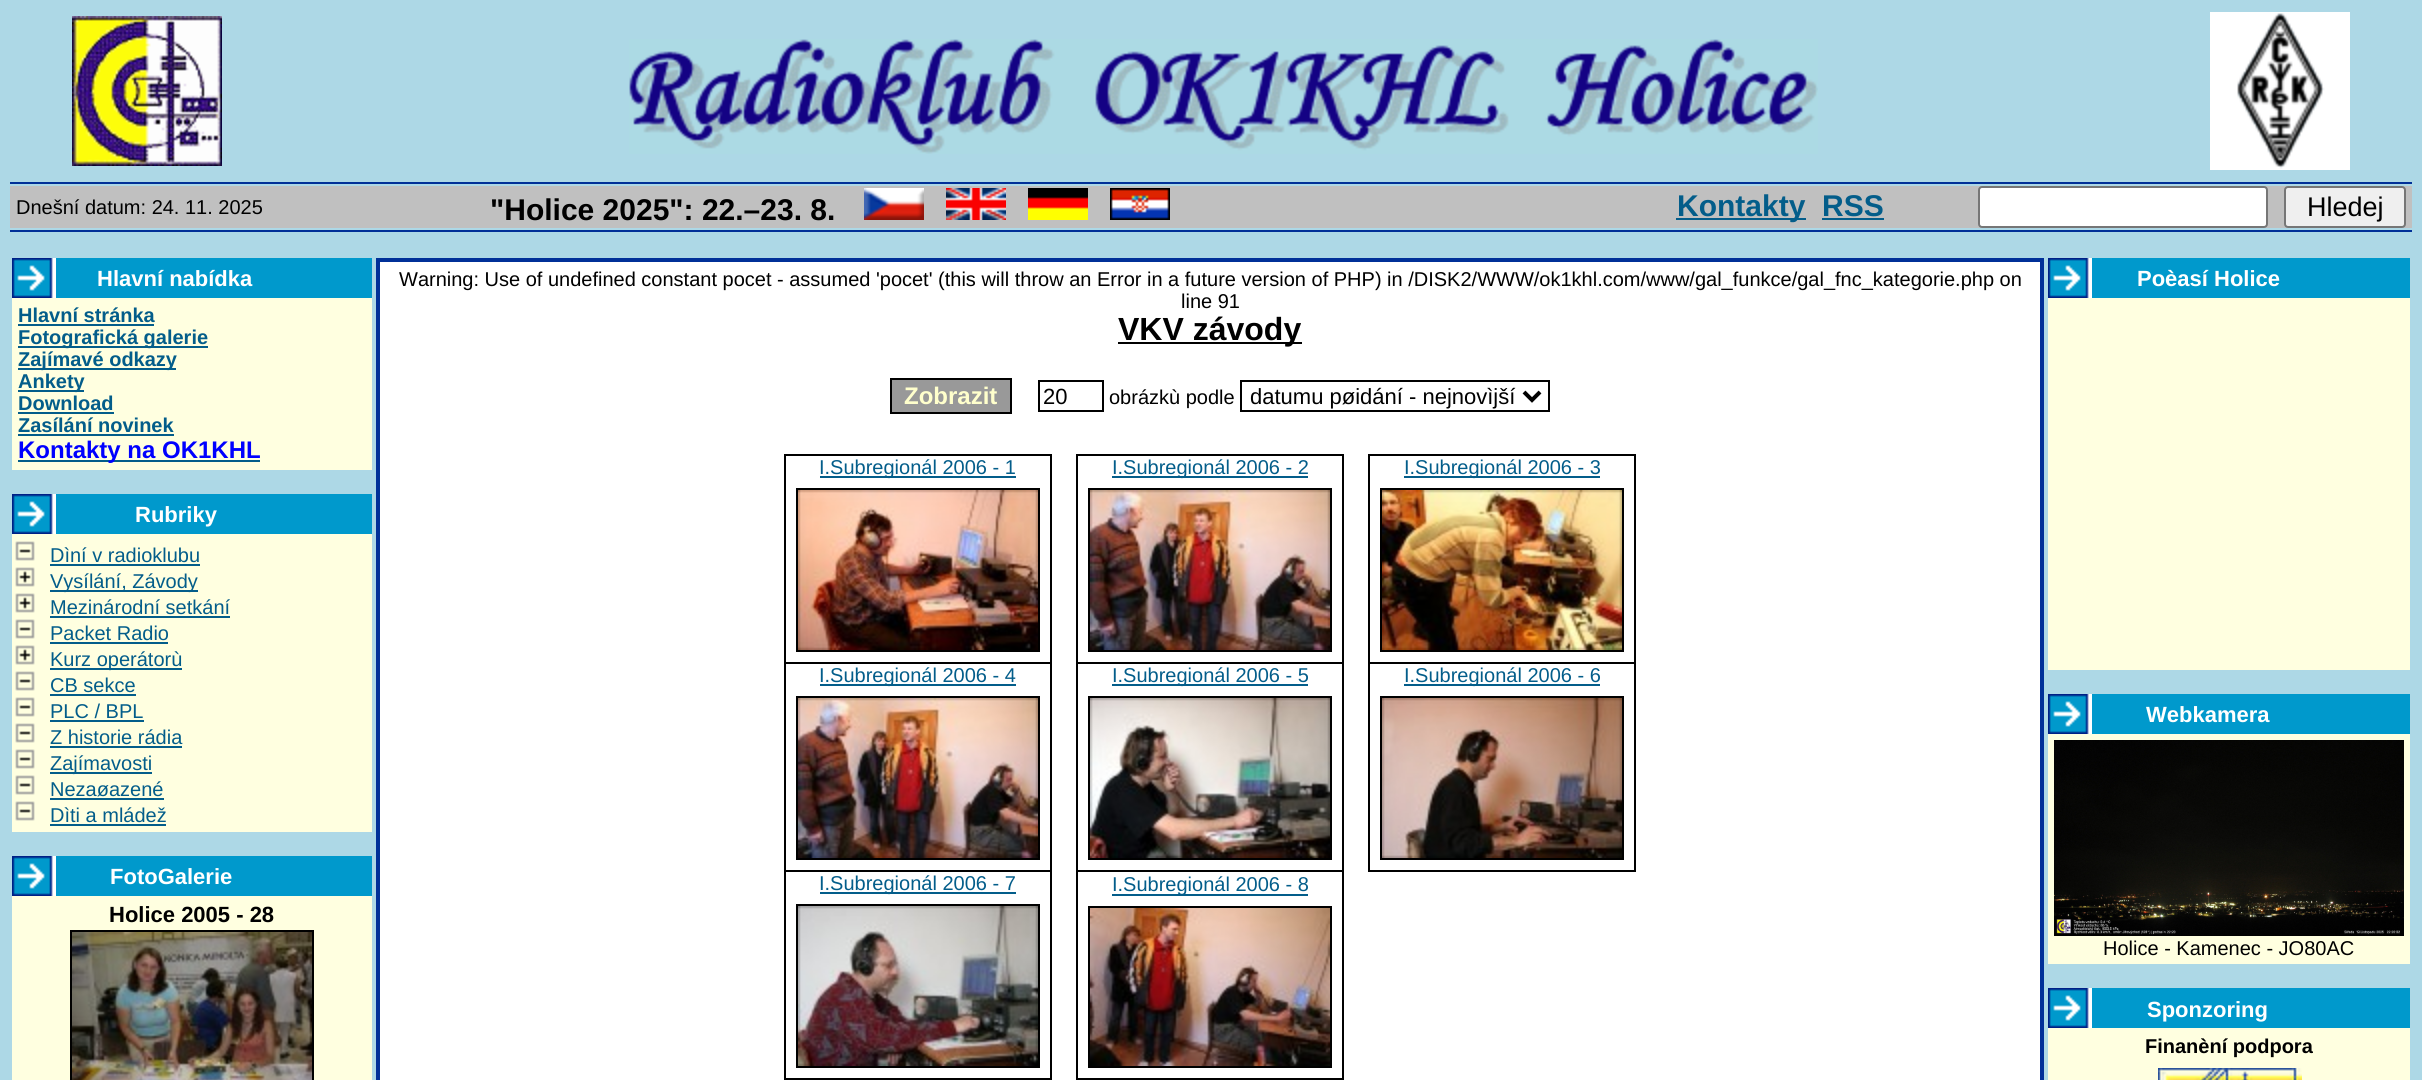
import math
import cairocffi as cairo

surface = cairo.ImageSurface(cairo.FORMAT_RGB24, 2422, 1080)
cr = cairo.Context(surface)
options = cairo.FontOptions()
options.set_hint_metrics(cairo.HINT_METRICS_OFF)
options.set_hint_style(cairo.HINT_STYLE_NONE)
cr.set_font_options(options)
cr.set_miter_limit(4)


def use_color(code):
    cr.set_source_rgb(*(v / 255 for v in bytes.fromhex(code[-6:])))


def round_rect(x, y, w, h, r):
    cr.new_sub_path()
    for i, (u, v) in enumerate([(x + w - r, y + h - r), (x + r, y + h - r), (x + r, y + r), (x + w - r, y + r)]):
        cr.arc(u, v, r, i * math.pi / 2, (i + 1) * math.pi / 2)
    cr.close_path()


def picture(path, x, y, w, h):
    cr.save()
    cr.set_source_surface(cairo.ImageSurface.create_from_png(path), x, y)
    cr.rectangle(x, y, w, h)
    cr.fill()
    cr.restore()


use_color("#add8e6")
cr.paint()
picture("img1.png", 72, 16, 150, 150)
picture("img2.png", 629, 39, 1189, 115)
picture("img3.png", 2210, 12, 140, 158)
use_color("#003098")
cr.rectangle(10, 182, 2402, 2)
cr.fill()
use_color("#c0c0c0")
cr.rectangle(10, 186, 2402, 42)
cr.fill()
cr.select_font_face("Liberation Sans")
cr.set_font_size(20)
use_color("#000000")
cr.move_to(16, 214)
cr.show_text("Dnešní datum: 24. 11. 2025")
cr.select_font_face("Liberation Sans", cairo.FONT_SLANT_NORMAL, cairo.FONT_WEIGHT_BOLD)
cr.set_font_size(30)
cr.move_to(490, 220)
cr.show_text("\"Holice 2025\": 22.–23. 8.")
picture("img4.png", 864, 188, 60, 32)
picture("img5.png", 946, 188, 60, 32)
picture("img6.png", 1028, 188, 60, 32)
picture("img7.png", 1110, 188, 60, 32)
use_color("#035d8a")
cr.rectangle(1676, 218, 130, 2)
cr.fill()
cr.move_to(1677, 216)
cr.show_text("Kontakty")
cr.move_to(1822, 216)
cr.show_text("RSS")
cr.rectangle(1822, 218, 62, 2)
cr.fill()
use_color("#ffffff")
round_rect(1979, 187, 288, 40, 3)
cr.fill_preserve()
use_color("#767676")
cr.stroke()
use_color("#efefef")
round_rect(2285, 187, 120, 40, 3)
cr.fill_preserve()
use_color("#767676")
cr.stroke()
cr.select_font_face("Liberation Sans")
cr.set_font_size(27)
use_color("#000000")
cr.move_to(2307, 216)
cr.show_text("Hledej")
use_color("#003098")
cr.rectangle(10, 230, 2402, 2)
cr.fill()
use_color("#0099cc")
cr.rectangle(56, 258, 316, 40)
cr.fill()
picture("img8.png", 12, 258, 44, 40)
cr.select_font_face("Liberation Sans", cairo.FONT_SLANT_NORMAL, cairo.FONT_WEIGHT_BOLD)
cr.set_font_size(22)
use_color("#ffffff")
cr.move_to(97, 286)
cr.show_text("Hlavní nabídka")
use_color("#ffffe0")
cr.rectangle(12, 298, 360, 172)
cr.fill()
cr.set_font_size(20)
use_color("#035d8a")
cr.move_to(18, 322)
cr.show_text("Hlavní stránka")
cr.rectangle(18, 324, 136, 2)
cr.fill()
cr.rectangle(18, 346, 190, 2)
cr.fill()
cr.move_to(18, 344)
cr.show_text("Fotografická galerie")
cr.rectangle(18, 368, 158, 2)
cr.fill()
cr.move_to(18, 366)
cr.show_text("Zajímavé odkazy")
cr.rectangle(18, 390, 66, 2)
cr.fill()
cr.move_to(18, 388)
cr.show_text("Ankety")
cr.move_to(18, 410)
cr.show_text("Download")
cr.rectangle(18, 412, 96, 2)
cr.fill()
cr.move_to(18, 432)
cr.show_text("Zasílání novinek")
cr.rectangle(18, 434, 156, 2)
cr.fill()
cr.rectangle(18, 460, 242, 2)
cr.fill()
cr.set_font_size(24)
use_color("#0000ff")
cr.move_to(18, 458)
cr.show_text("Kontakty na OK1KHL")
use_color("#0099cc")
cr.rectangle(56, 494, 316, 40)
cr.fill()
picture("img8.png", 12, 494, 44, 40)
cr.set_font_size(22)
use_color("#ffffff")
cr.move_to(135, 522)
cr.show_text("Rubriky")
use_color("#ffffe0")
cr.rectangle(12, 534, 360, 298)
cr.fill()
picture("img9.png", 15, 541, 20, 20)
cr.select_font_face("Liberation Sans")
cr.set_font_size(20)
use_color("#035d8a")
cr.move_to(50, 562)
cr.show_text("Dìní v radioklubu")
cr.rectangle(50, 564, 150, 2)
cr.fill()
picture("img10.png", 15, 567, 20, 20)
cr.rectangle(50, 590, 148, 2)
cr.fill()
cr.move_to(50, 588)
cr.show_text("Vysílání, Závody")
picture("img10.png", 15, 593, 20, 20)
cr.move_to(50, 614)
cr.show_text("Mezinárodní setkání")
cr.rectangle(50, 616, 180, 2)
cr.fill()
picture("img9.png", 15, 619, 20, 20)
cr.move_to(50, 640)
cr.show_text("Packet Radio")
cr.rectangle(50, 642, 118, 2)
cr.fill()
picture("img10.png", 15, 645, 20, 20)
cr.rectangle(50, 668, 132, 2)
cr.fill()
cr.move_to(50, 666)
cr.show_text("Kurz operátorù")
picture("img9.png", 15, 671, 20, 20)
cr.move_to(50, 692)
cr.show_text("CB sekce")
cr.rectangle(50, 694, 86, 2)
cr.fill()
picture("img9.png", 15, 697, 20, 20)
cr.move_to(50, 718)
cr.show_text("PLC / BPL")
cr.rectangle(50, 720, 94, 2)
cr.fill()
picture("img9.png", 15, 723, 20, 20)
cr.move_to(50, 744)
cr.show_text("Z historie rádia")
cr.rectangle(50, 746, 132, 2)
cr.fill()
picture("img9.png", 15, 749, 20, 20)
cr.rectangle(50, 772, 102, 2)
cr.fill()
cr.move_to(50, 770)
cr.show_text("Zajímavosti")
picture("img9.png", 15, 775, 20, 20)
cr.move_to(50, 796)
cr.show_text("Nezaøazené")
cr.rectangle(50, 798, 114, 2)
cr.fill()
picture("img9.png", 15, 801, 20, 20)
cr.move_to(50, 822)
cr.show_text("Dìti a mládež")
cr.rectangle(50, 824, 116, 2)
cr.fill()
use_color("#0099cc")
cr.rectangle(56, 856, 316, 40)
cr.fill()
picture("img8.png", 12, 856, 44, 40)
cr.select_font_face("Liberation Sans", cairo.FONT_SLANT_NORMAL, cairo.FONT_WEIGHT_BOLD)
cr.set_font_size(22)
use_color("#ffffff")
cr.move_to(110, 884)
cr.show_text("FotoGalerie")
use_color("#ffffe0")
cr.rectangle(12, 896, 360, 184)
cr.fill()
use_color("#000000")
cr.move_to(109, 922)
cr.show_text("Holice 2005 - 28")
cr.rectangle(71, 931, 242, 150)
cr.stroke()
picture("img11.png", 72, 932, 240, 148)
use_color("#ffffff")
cr.rectangle(378, 260, 1664, 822)
cr.fill_preserve()
use_color("#003098")
cr.set_line_width(4)
cr.stroke()
cr.select_font_face("Liberation Sans")
cr.set_font_size(20)
use_color("#000000")
cr.move_to(399, 286)
cr.show_text("Warning: Use of undefined constant pocet - assumed 'pocet' (this will throw an Error in a future version of PHP) in /DISK2/WWW/ok1khl.com/www/gal_funkce/gal_fnc_kategorie.php on")
cr.move_to(1181, 308)
cr.show_text("line 91")
cr.rectangle(1118, 342, 184, 2)
cr.fill()
cr.select_font_face("Liberation Sans", cairo.FONT_SLANT_NORMAL, cairo.FONT_WEIGHT_BOLD)
cr.set_font_size(32)
cr.move_to(1118, 340)
cr.show_text("VKV závody")
use_color("#999999")
cr.rectangle(891, 379, 120, 34)
cr.fill_preserve()
use_color("#000000")
cr.set_line_width(2)
cr.stroke()
cr.set_font_size(24)
use_color("#ffffcc")
cr.move_to(904, 404)
cr.show_text("Zobrazit")
cr.rectangle(1039, 381, 64, 30)
use_color("#000000")
cr.stroke()
cr.select_font_face("Liberation Sans")
cr.set_font_size(22)
cr.move_to(1043, 404)
cr.show_text("20")
cr.set_font_size(20)
cr.move_to(1109, 404)
cr.show_text("obrázkù podle")
cr.rectangle(1241, 381, 308, 30)
cr.stroke()
cr.new_path()
cr.move_to(1524, 392)
cr.line_to(1532, 400)
cr.line_to(1540, 392)
cr.set_line_width(4)
cr.stroke()
cr.set_font_size(22)
cr.move_to(1250, 404)
cr.show_text("datumu pøidání - nejnovìjší")
cr.rectangle(784, 454, 268, 2)
cr.fill()
cr.rectangle(784, 662, 268, 2)
cr.fill()
cr.rectangle(784, 870, 268, 2)
cr.fill()
cr.rectangle(1050, 870, 2, 210)
cr.fill()
cr.rectangle(1050, 662, 2, 210)
cr.fill()
cr.rectangle(1050, 454, 2, 210)
cr.fill()
cr.rectangle(784, 1078, 268, 2)
cr.fill()
cr.rectangle(784, 870, 2, 210)
cr.fill()
cr.rectangle(784, 662, 2, 210)
cr.fill()
cr.rectangle(784, 454, 2, 210)
cr.fill()
use_color("#035d8a")
cr.rectangle(820, 476, 196, 2)
cr.fill()
cr.set_font_size(20)
cr.move_to(819, 474)
cr.show_text("I.Subregionál 2006 - 1")
cr.rectangle(797, 489, 242, 162)
use_color("#000000")
cr.set_line_width(2)
cr.stroke()
picture("img12.png", 798, 490, 240, 160)
cr.rectangle(1076, 454, 268, 2)
cr.fill()
cr.rectangle(1076, 662, 268, 2)
cr.fill()
cr.rectangle(1076, 870, 268, 2)
cr.fill()
cr.rectangle(1342, 870, 2, 210)
cr.fill()
cr.rectangle(1342, 662, 2, 210)
cr.fill()
cr.rectangle(1342, 454, 2, 210)
cr.fill()
cr.rectangle(1076, 1078, 268, 2)
cr.fill()
cr.rectangle(1076, 870, 2, 210)
cr.fill()
cr.rectangle(1076, 662, 2, 210)
cr.fill()
cr.rectangle(1076, 454, 2, 210)
cr.fill()
use_color("#035d8a")
cr.rectangle(1112, 476, 196, 2)
cr.fill()
cr.move_to(1112, 474)
cr.show_text("I.Subregionál 2006 - 2")
cr.rectangle(1089, 489, 242, 162)
use_color("#000000")
cr.stroke()
picture("img13.png", 1090, 490, 240, 160)
cr.rectangle(1368, 454, 268, 2)
cr.fill()
cr.rectangle(1368, 662, 268, 2)
cr.fill()
cr.rectangle(1634, 662, 2, 210)
cr.fill()
cr.rectangle(1634, 454, 2, 210)
cr.fill()
cr.rectangle(1368, 870, 268, 2)
cr.fill()
cr.rectangle(1368, 662, 2, 210)
cr.fill()
cr.rectangle(1368, 454, 2, 210)
cr.fill()
use_color("#035d8a")
cr.rectangle(1404, 476, 196, 2)
cr.fill()
cr.move_to(1404, 474)
cr.show_text("I.Subregionál 2006 - 3")
cr.rectangle(1381, 489, 242, 162)
use_color("#000000")
cr.stroke()
picture("img14.png", 1382, 490, 240, 160)
use_color("#035d8a")
cr.rectangle(820, 684, 196, 2)
cr.fill()
cr.move_to(819, 682)
cr.show_text("I.Subregionál 2006 - 4")
cr.rectangle(797, 697, 242, 162)
use_color("#000000")
cr.stroke()
picture("img13.png", 798, 698, 240, 160)
use_color("#035d8a")
cr.rectangle(1112, 684, 196, 2)
cr.fill()
cr.move_to(1112, 682)
cr.show_text("I.Subregionál 2006 - 5")
cr.rectangle(1089, 697, 242, 162)
use_color("#000000")
cr.stroke()
picture("img15.png", 1090, 698, 240, 160)
use_color("#035d8a")
cr.rectangle(1404, 684, 196, 2)
cr.fill()
cr.move_to(1404, 682)
cr.show_text("I.Subregionál 2006 - 6")
cr.rectangle(1381, 697, 242, 162)
use_color("#000000")
cr.stroke()
picture("img16.png", 1382, 698, 240, 160)
use_color("#035d8a")
cr.rectangle(820, 892, 196, 2)
cr.fill()
cr.move_to(819, 890)
cr.show_text("I.Subregionál 2006 - 7")
cr.rectangle(797, 905, 242, 162)
use_color("#000000")
cr.stroke()
picture("img17.png", 798, 906, 240, 160)
use_color("#035d8a")
cr.rectangle(1112, 894, 196, 2)
cr.fill()
cr.move_to(1112, 891)
cr.show_text("I.Subregionál 2006 - 8")
cr.rectangle(1089, 907, 242, 160)
use_color("#000000")
cr.stroke()
picture("img18.png", 1090, 908, 240, 158)
use_color("#0099cc")
cr.rectangle(2092, 258, 318, 40)
cr.fill()
picture("img8.png", 2048, 258, 44, 40)
cr.select_font_face("Liberation Sans", cairo.FONT_SLANT_NORMAL, cairo.FONT_WEIGHT_BOLD)
cr.set_font_size(22)
use_color("#ffffff")
cr.move_to(2137, 286)
cr.show_text("Poèasí Holice")
use_color("#ffffe0")
cr.rectangle(2048, 298, 362, 372)
cr.fill()
use_color("#0099cc")
cr.rectangle(2092, 694, 318, 40)
cr.fill()
picture("img8.png", 2048, 694, 44, 40)
use_color("#ffffff")
cr.move_to(2146, 722)
cr.show_text("Webkamera")
use_color("#ffffe0")
cr.rectangle(2048, 734, 362, 230)
cr.fill()
picture("img19.png", 2054, 740, 350, 196)
cr.select_font_face("Liberation Sans")
cr.set_font_size(20)
use_color("#000000")
cr.move_to(2103, 955)
cr.show_text("Holice - Kamenec - JO80AC")
use_color("#0099cc")
cr.rectangle(2092, 988, 318, 40)
cr.fill()
picture("img8.png", 2048, 988, 44, 40)
cr.select_font_face("Liberation Sans", cairo.FONT_SLANT_NORMAL, cairo.FONT_WEIGHT_BOLD)
cr.set_font_size(22)
use_color("#ffffff")
cr.move_to(2147, 1017)
cr.show_text("Sponzoring")
use_color("#ffffe0")
cr.rectangle(2048, 1028, 362, 52)
cr.fill()
cr.set_font_size(20)
use_color("#000000")
cr.move_to(2145, 1053)
cr.show_text("Finanèní podpora")
picture("img20.png", 2158, 1068, 144, 12)
surface.write_to_png("result.png")
